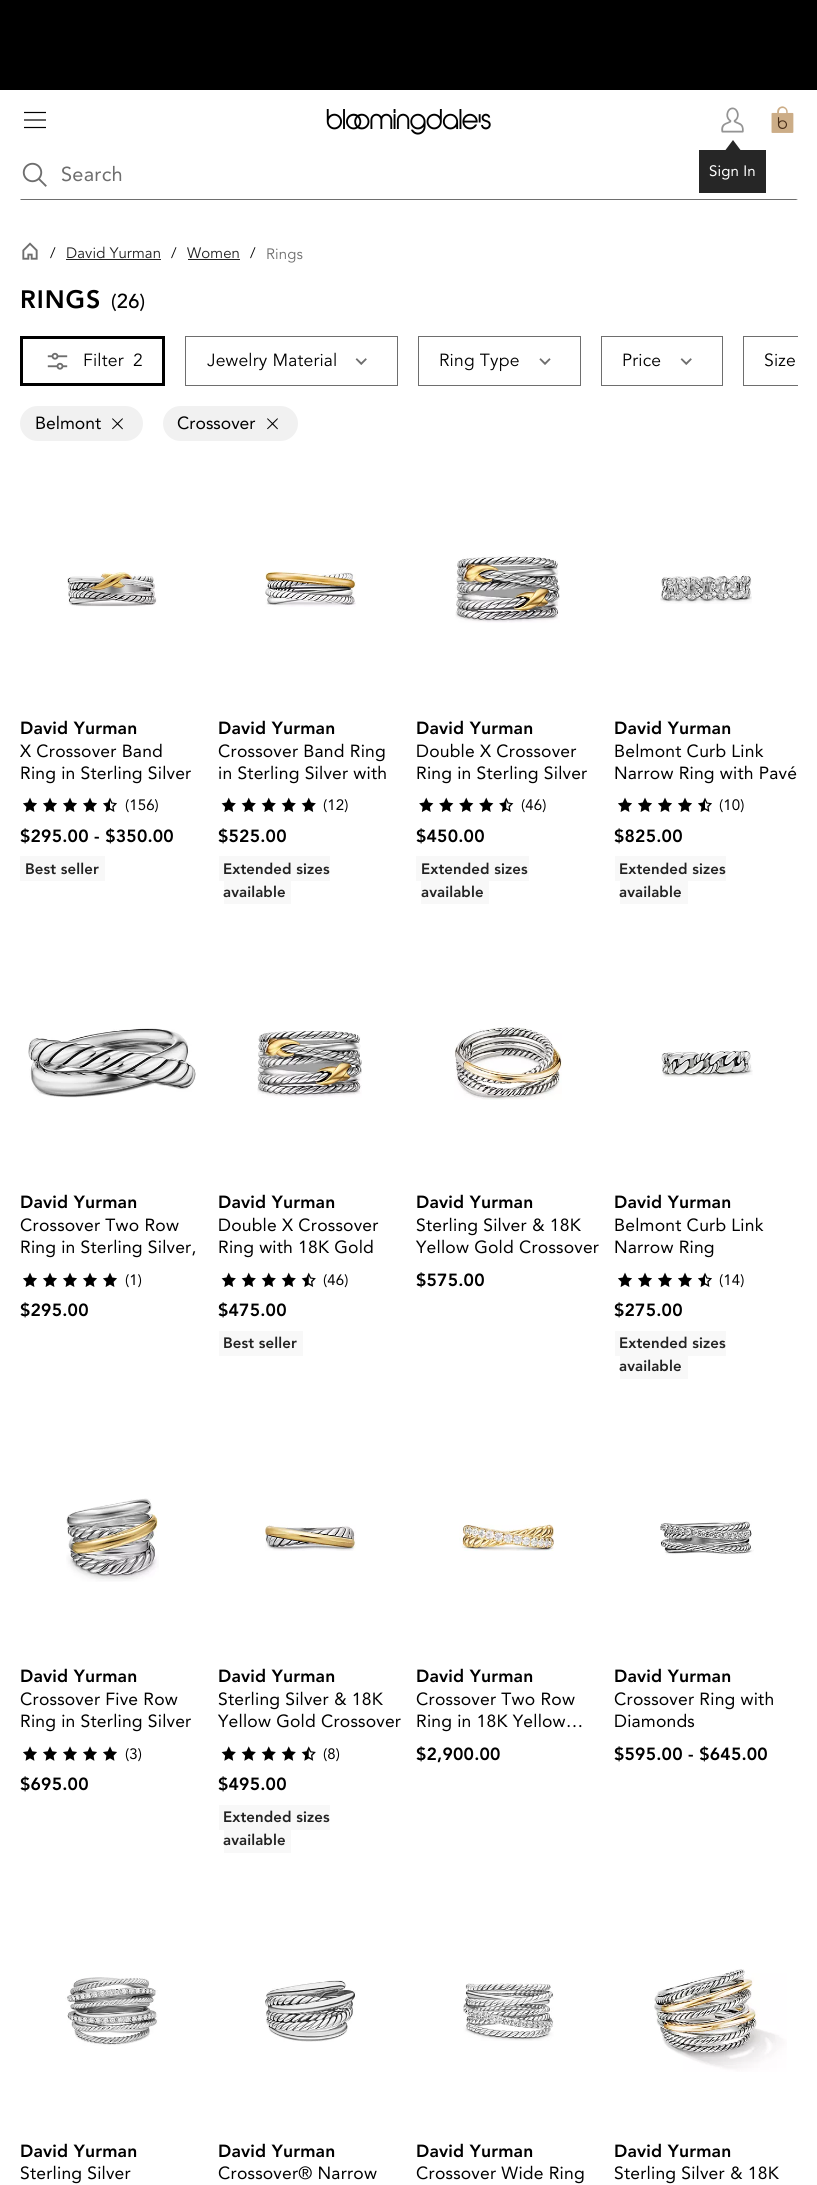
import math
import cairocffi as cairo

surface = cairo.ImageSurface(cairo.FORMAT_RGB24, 817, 2185)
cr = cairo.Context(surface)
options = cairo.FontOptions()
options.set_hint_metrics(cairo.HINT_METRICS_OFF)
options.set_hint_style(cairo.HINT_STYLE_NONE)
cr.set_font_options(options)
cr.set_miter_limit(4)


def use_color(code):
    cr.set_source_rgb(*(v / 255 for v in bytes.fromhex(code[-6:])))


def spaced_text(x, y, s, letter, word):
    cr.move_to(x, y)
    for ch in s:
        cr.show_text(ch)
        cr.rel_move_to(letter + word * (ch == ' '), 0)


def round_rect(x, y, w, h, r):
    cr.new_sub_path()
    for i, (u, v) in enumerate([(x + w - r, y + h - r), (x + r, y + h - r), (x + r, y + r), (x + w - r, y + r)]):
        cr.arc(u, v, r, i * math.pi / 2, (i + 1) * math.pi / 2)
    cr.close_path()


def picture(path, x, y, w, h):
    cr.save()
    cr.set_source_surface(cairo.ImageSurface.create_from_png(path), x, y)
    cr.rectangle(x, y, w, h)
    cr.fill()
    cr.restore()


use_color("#ffffff")
cr.paint()
use_color("#000000")
cr.rectangle(0, 0, 817, 90)
cr.fill()
picture("img1.png", 22, 162, 25, 25)
use_color("#6e6e6e")
cr.new_path()
cr.move_to(798, 200)
cr.line_to(20, 200)
cr.line_to(21, 199)
cr.line_to(796, 199)
cr.close_path()
cr.fill()
cr.select_font_face("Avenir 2")
cr.set_font_size(20)
spaced_text(61, 181, "Search", 0.25, 0)
cr.new_path()
cr.move_to(24, 112.5)
cr.line_to(46, 112.5)
cr.move_to(24, 120)
cr.line_to(46, 120)
cr.move_to(24, 127.5)
cr.line_to(46, 127.5)
use_color("#000000")
cr.set_line_width(1.2)
cr.stroke()
picture("img2.png", 326, 109, 165, 26)
picture("img3.png", 771, 106, 23, 27)
picture("img4.png", 721, 107, 23, 26)
use_color("#262626")
cr.rectangle(699, 150, 67, 43)
cr.fill()
cr.new_path()
cr.move_to(740.5, 150)
cr.line_to(725.5, 150)
cr.line_to(733, 140)
cr.close_path()
cr.fill()
cr.set_font_size(15)
use_color("#ffffff")
spaced_text(709, 176, "Sign In", 0.1, 0)
picture("img5.png", 22, 242, 16, 18)
cr.select_font_face("Avenir")
use_color("#000000")
spaced_text(50, 258, "/", 0.1, 0)
use_color("#222222")
spaced_text(66, 258, "David Yurman", 0.1, 0)
cr.rectangle(66, 259, 95, 1)
cr.fill()
use_color("#000000")
spaced_text(171, 258, "/", 0.1, 0)
use_color("#222222")
spaced_text(187, 258, "Women", 0.1, 0)
cr.rectangle(188, 259, 52, 1)
cr.fill()
use_color("#000000")
spaced_text(250, 258, "/", 0.1, 0)
use_color("#6e6e6e")
spaced_text(266, 259, "Rings", 0.1, 0)
cr.select_font_face("Avenir Black")
cr.set_font_size(25)
use_color("#000000")
spaced_text(20, 308, "RINGS", 1, 0)
cr.select_font_face("Avenir Medium")
cr.set_font_size(20)
spaced_text(111, 308, "(26)", 0.25, 0)
cr.rectangle(21.5, 337.5, 142, 47)
cr.set_line_width(3)
cr.stroke()
picture("img6.png", 47, 352, 21, 18)
cr.select_font_face("Avenir")
cr.set_font_size(17.5)
spaced_text(83, 366, "Filter", 0.2, 0)
spaced_text(133, 366, "2", 0.2, 0)
cr.rectangle(185.5, 336.5, 212, 49)
use_color("#6e6e6e")
cr.set_line_width(1)
cr.stroke()
use_color("#000000")
spaced_text(207, 366, "Jewelry Material", 0.2, 0)
picture("img7.png", 355, 358, 12, 7)
cr.rectangle(418.5, 336.5, 162, 49)
use_color("#6e6e6e")
cr.stroke()
use_color("#000000")
spaced_text(439, 366, "Ring Type", 0.2, 0)
picture("img8.png", 539, 358, 12, 7)
cr.rectangle(601.5, 336.5, 121, 49)
use_color("#6e6e6e")
cr.stroke()
use_color("#000000")
spaced_text(622, 366, "Price", 0.2, 0)
picture("img7.png", 680, 358, 12, 7)
cr.save()
cr.rectangle(20, 336, 778, 50)
cr.clip()
cr.rectangle(743.5, 336.5, 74, 49)
use_color("#6e6e6e")
cr.stroke()
cr.restore()
spaced_text(764, 366, "Size", 0.2, 0)
use_color("#f1f1f1")
round_rect(20, 406, 123, 35, 17.5)
cr.fill()
cr.select_font_face("Avenir 2")
use_color("#000000")
cr.move_to(35, 429)
cr.show_text("Belmont")
picture("img9.png", 112, 418, 11, 12)
use_color("#f1f1f1")
round_rect(163, 406, 135, 35, 17.5)
cr.fill()
use_color("#000000")
cr.move_to(177, 429)
cr.show_text("Crossover")
picture("img9.png", 267, 418, 11, 12)
picture("img10.png", 67, 572, 90, 35)
cr.select_font_face("Avenir Black")
spaced_text(20, 734, "David Yurman", 0.2, 0)
cr.select_font_face("Avenir 2")
spaced_text(20, 757, "X Crossover Band", 0.2, 0)
spaced_text(20, 779, "Ring in Sterling Silver", 0.2, 0)
picture("img11.png", 23, 797, 14, 15)
picture("img11.png", 43, 797, 14, 15)
picture("img11.png", 63, 797, 14, 15)
picture("img11.png", 83, 797, 14, 15)
picture("img12.png", 103, 797, 14, 15)
cr.set_font_size(15)
spaced_text(125, 810, "(156)", 0.1, 0)
cr.select_font_face("Avenir Black")
cr.set_font_size(17.5)
spaced_text(20, 842, "$295.00 - $350.00", 0.2, 0)
use_color("#f8f8f8")
cr.rectangle(20, 856, 85, 25)
cr.fill()
cr.set_font_size(15)
use_color("#222222")
spaced_text(25, 874, "Best seller", 0.1, 0)
picture("img13.png", 265, 571, 91, 36)
cr.set_font_size(17.5)
use_color("#000000")
spaced_text(218, 734, "David Yurman", 0.2, 0)
cr.select_font_face("Avenir 2")
spaced_text(218, 757, "Crossover Band Ring", 0.2, 0)
spaced_text(218, 779, "in Sterling Silver with", 0.2, 0)
picture("img14.png", 221, 797, 15, 15)
picture("img14.png", 241, 797, 15, 15)
picture("img14.png", 261, 797, 15, 15)
picture("img14.png", 281, 797, 15, 15)
picture("img14.png", 301, 797, 15, 15)
cr.set_font_size(15)
spaced_text(323, 810, "(12)", 0.1, 0)
cr.select_font_face("Avenir Black")
cr.set_font_size(17.5)
spaced_text(218, 842, "$525.00", 0.2, 0)
use_color("#f8f8f8")
cr.rectangle(219, 856, 111, 25)
cr.fill()
cr.set_font_size(15)
use_color("#222222")
spaced_text(223, 874, "Extended sizes", 0.1, 0)
use_color("#f8f8f8")
cr.rectangle(224, 881, 67, 23)
cr.fill()
use_color("#222222")
spaced_text(223, 897, "available", 0.1, 0)
picture("img15.png", 455, 555, 105, 68)
cr.set_font_size(17.5)
use_color("#000000")
spaced_text(416, 734, "David Yurman", 0.2, 0)
cr.select_font_face("Avenir 2")
spaced_text(416, 757, "Double X Crossover", 0.2, 0)
spaced_text(416, 779, "Ring in Sterling Silver", 0.2, 0)
picture("img16.png", 419, 797, 15, 15)
picture("img16.png", 439, 797, 15, 15)
picture("img16.png", 459, 797, 15, 15)
picture("img16.png", 479, 797, 15, 15)
picture("img17.png", 499, 797, 15, 15)
cr.set_font_size(15)
spaced_text(521, 810, "(46)", 0.1, 0)
cr.select_font_face("Avenir Black")
cr.set_font_size(17.5)
spaced_text(416, 842, "$450.00", 0.2, 0)
use_color("#f8f8f8")
cr.rectangle(416, 856, 113, 25)
cr.fill()
cr.set_font_size(15)
use_color("#222222")
spaced_text(421, 874, "Extended sizes", 0.1, 0)
use_color("#f8f8f8")
cr.rectangle(421, 881, 68, 23)
cr.fill()
use_color("#222222")
spaced_text(421, 897, "available", 0.1, 0)
picture("img18.png", 660, 574, 92, 30)
cr.set_font_size(17.5)
use_color("#000000")
spaced_text(614, 734, "David Yurman", 0.2, 0)
cr.select_font_face("Avenir 2")
spaced_text(614, 757, "Belmont Curb Link", 0.2, 0)
spaced_text(614, 779, "Narrow Ring with Pavé", 0.2, 0)
picture("img11.png", 618, 797, 14, 15)
picture("img11.png", 638, 797, 14, 15)
picture("img11.png", 658, 797, 14, 15)
picture("img11.png", 678, 797, 14, 15)
picture("img12.png", 698, 797, 14, 15)
cr.set_font_size(15)
spaced_text(719, 810, "(10)", 0.1, 0)
cr.select_font_face("Avenir Black")
cr.set_font_size(17.5)
spaced_text(614, 842, "$825.00", 0.2, 0)
use_color("#f8f8f8")
cr.rectangle(615, 856, 111, 25)
cr.fill()
cr.set_font_size(15)
use_color("#222222")
spaced_text(619, 874, "Extended sizes", 0.1, 0)
use_color("#f8f8f8")
cr.rectangle(620, 881, 68, 23)
cr.fill()
use_color("#222222")
spaced_text(619, 897, "available", 0.1, 0)
picture("img19.png", 28, 1027, 168, 71)
cr.set_font_size(17.5)
use_color("#000000")
spaced_text(20, 1208, "David Yurman", 0.2, 0)
cr.select_font_face("Avenir 2")
spaced_text(20, 1231, "Crossover Two Row", 0.2, 0)
spaced_text(20, 1253, "Ring in Sterling Silver,", 0.2, 0)
picture("img11.png", 23, 1272, 14, 15)
picture("img11.png", 43, 1272, 14, 15)
picture("img11.png", 63, 1272, 14, 15)
picture("img11.png", 83, 1272, 14, 15)
picture("img11.png", 103, 1272, 14, 15)
cr.set_font_size(15)
spaced_text(125, 1285, "(1)", 0.1, 0)
cr.select_font_face("Avenir Black")
cr.set_font_size(17.5)
spaced_text(20, 1316, "$295.00", 0.2, 0)
picture("img20.png", 257, 1031, 105, 67)
spaced_text(218, 1208, "David Yurman", 0.2, 0)
cr.select_font_face("Avenir 2")
spaced_text(218, 1231, "Double X Crossover", 0.2, 0)
spaced_text(218, 1253, "Ring with 18K Gold", 0.2, 0)
picture("img14.png", 221, 1272, 15, 15)
picture("img14.png", 241, 1272, 15, 15)
picture("img14.png", 261, 1272, 15, 15)
picture("img14.png", 281, 1272, 15, 15)
picture("img21.png", 301, 1272, 15, 15)
cr.set_font_size(15)
spaced_text(323, 1285, "(46)", 0.1, 0)
cr.select_font_face("Avenir Black")
cr.set_font_size(17.5)
spaced_text(218, 1316, "$475.00", 0.2, 0)
use_color("#f8f8f8")
cr.rectangle(219, 1331, 84, 25)
cr.fill()
cr.set_font_size(15)
use_color("#222222")
spaced_text(223, 1348, "Best seller", 0.1, 0)
picture("img22.png", 454, 1027, 108, 73)
cr.set_font_size(17.5)
use_color("#000000")
spaced_text(416, 1208, "David Yurman", 0.2, 0)
cr.select_font_face("Avenir 2")
spaced_text(416, 1231, "Sterling Silver & 18K", 0.2, 0)
spaced_text(416, 1253, "Yellow Gold Crossover", 0.2, 0)
cr.select_font_face("Avenir Black")
spaced_text(416, 1286, "$575.00", 0.2, 0)
picture("img23.png", 661, 1050, 92, 27)
spaced_text(614, 1208, "David Yurman", 0.2, 0)
cr.select_font_face("Avenir 2")
spaced_text(614, 1231, "Belmont Curb Link", 0.2, 0)
spaced_text(614, 1253, "Narrow Ring", 0.2, 0)
picture("img11.png", 618, 1272, 14, 15)
picture("img11.png", 638, 1272, 14, 15)
picture("img11.png", 658, 1272, 14, 15)
picture("img11.png", 678, 1272, 14, 15)
picture("img12.png", 698, 1272, 14, 15)
cr.set_font_size(15)
spaced_text(719, 1285, "(14)", 0.1, 0)
cr.select_font_face("Avenir Black")
cr.set_font_size(17.5)
spaced_text(614, 1316, "$275.00", 0.2, 0)
use_color("#f8f8f8")
cr.rectangle(615, 1331, 111, 25)
cr.fill()
cr.set_font_size(15)
use_color("#222222")
spaced_text(619, 1348, "Extended sizes", 0.1, 0)
use_color("#f8f8f8")
cr.rectangle(620, 1356, 68, 23)
cr.fill()
use_color("#222222")
spaced_text(619, 1371, "available", 0.1, 0)
picture("img24.png", 66, 1498, 93, 84)
cr.set_font_size(17.5)
use_color("#000000")
spaced_text(20, 1682, "David Yurman", 0.2, 0)
cr.select_font_face("Avenir 2")
spaced_text(20, 1705, "Crossover Five Row", 0.2, 0)
spaced_text(20, 1727, "Ring in Sterling Silver", 0.2, 0)
picture("img25.png", 23, 1746, 14, 15)
picture("img25.png", 43, 1746, 14, 15)
picture("img25.png", 63, 1746, 14, 15)
picture("img25.png", 83, 1746, 14, 15)
picture("img25.png", 103, 1746, 14, 15)
cr.set_font_size(15)
spaced_text(125, 1759, "(3)", 0.1, 0)
cr.select_font_face("Avenir Black")
cr.set_font_size(17.5)
spaced_text(20, 1790, "$695.00", 0.2, 0)
picture("img26.png", 265, 1525, 91, 26)
spaced_text(218, 1682, "David Yurman", 0.2, 0)
cr.select_font_face("Avenir 2")
spaced_text(218, 1705, "Sterling Silver & 18K", 0.2, 0)
spaced_text(218, 1727, "Yellow Gold Crossover", 0.2, 0)
picture("img27.png", 221, 1746, 15, 15)
picture("img27.png", 241, 1746, 15, 15)
picture("img27.png", 261, 1746, 15, 15)
picture("img27.png", 281, 1746, 15, 15)
picture("img28.png", 301, 1746, 15, 15)
cr.set_font_size(15)
spaced_text(323, 1759, "(8)", 0.1, 0)
cr.select_font_face("Avenir Black")
cr.set_font_size(17.5)
spaced_text(218, 1790, "$495.00", 0.2, 0)
use_color("#f8f8f8")
cr.rectangle(219, 1805, 111, 25)
cr.fill()
cr.set_font_size(15)
use_color("#222222")
spaced_text(223, 1822, "Extended sizes", 0.1, 0)
use_color("#f8f8f8")
cr.rectangle(224, 1830, 67, 23)
cr.fill()
use_color("#222222")
spaced_text(223, 1845, "available", 0.1, 0)
picture("img29.png", 459, 1524, 95, 27)
cr.set_font_size(17.5)
use_color("#000000")
spaced_text(416, 1682, "David Yurman", 0.2, 0)
cr.select_font_face("Avenir 2")
spaced_text(416, 1705, "Crossover Two Row", 0.2, 0)
spaced_text(416, 1727, "Ring in 18K Yellow…", 0.2, 0)
cr.select_font_face("Avenir Black")
spaced_text(416, 1760, "$2,900.00", 0.2, 0)
picture("img30.png", 660, 1521, 94, 34)
spaced_text(614, 1682, "David Yurman", 0.2, 0)
cr.select_font_face("Avenir 2")
spaced_text(614, 1705, "Crossover Ring with", 0.2, 0)
spaced_text(614, 1727, "Diamonds", 0.2, 0)
cr.select_font_face("Avenir Black")
spaced_text(614, 1760, "$595.00 - $645.00", 0.2, 0)
picture("img31.png", 65, 1977, 93, 69)
spaced_text(20, 2157, "David Yurman", 0.2, 0)
cr.select_font_face("Avenir 2")
spaced_text(20, 2179, "Sterling Silver", 0.2, 0)
picture("img32.png", 265, 1980, 91, 62)
cr.select_font_face("Avenir Black")
spaced_text(218, 2157, "David Yurman", 0.2, 0)
cr.select_font_face("Avenir 2")
spaced_text(218, 2179, "Crossover® Narrow", 0.2, 0)
picture("img33.png", 463, 1983, 91, 58)
cr.select_font_face("Avenir Black")
spaced_text(416, 2157, "David Yurman", 0.2, 0)
cr.select_font_face("Avenir 2")
spaced_text(416, 2179, "Crossover Wide Ring", 0.2, 0)
picture("img34.png", 654, 1969, 133, 103)
cr.select_font_face("Avenir Black")
spaced_text(614, 2157, "David Yurman", 0.2, 0)
cr.select_font_face("Avenir 2")
spaced_text(614, 2179, "Sterling Silver & 18K", 0.2, 0)
surface.write_to_png("result.png")
